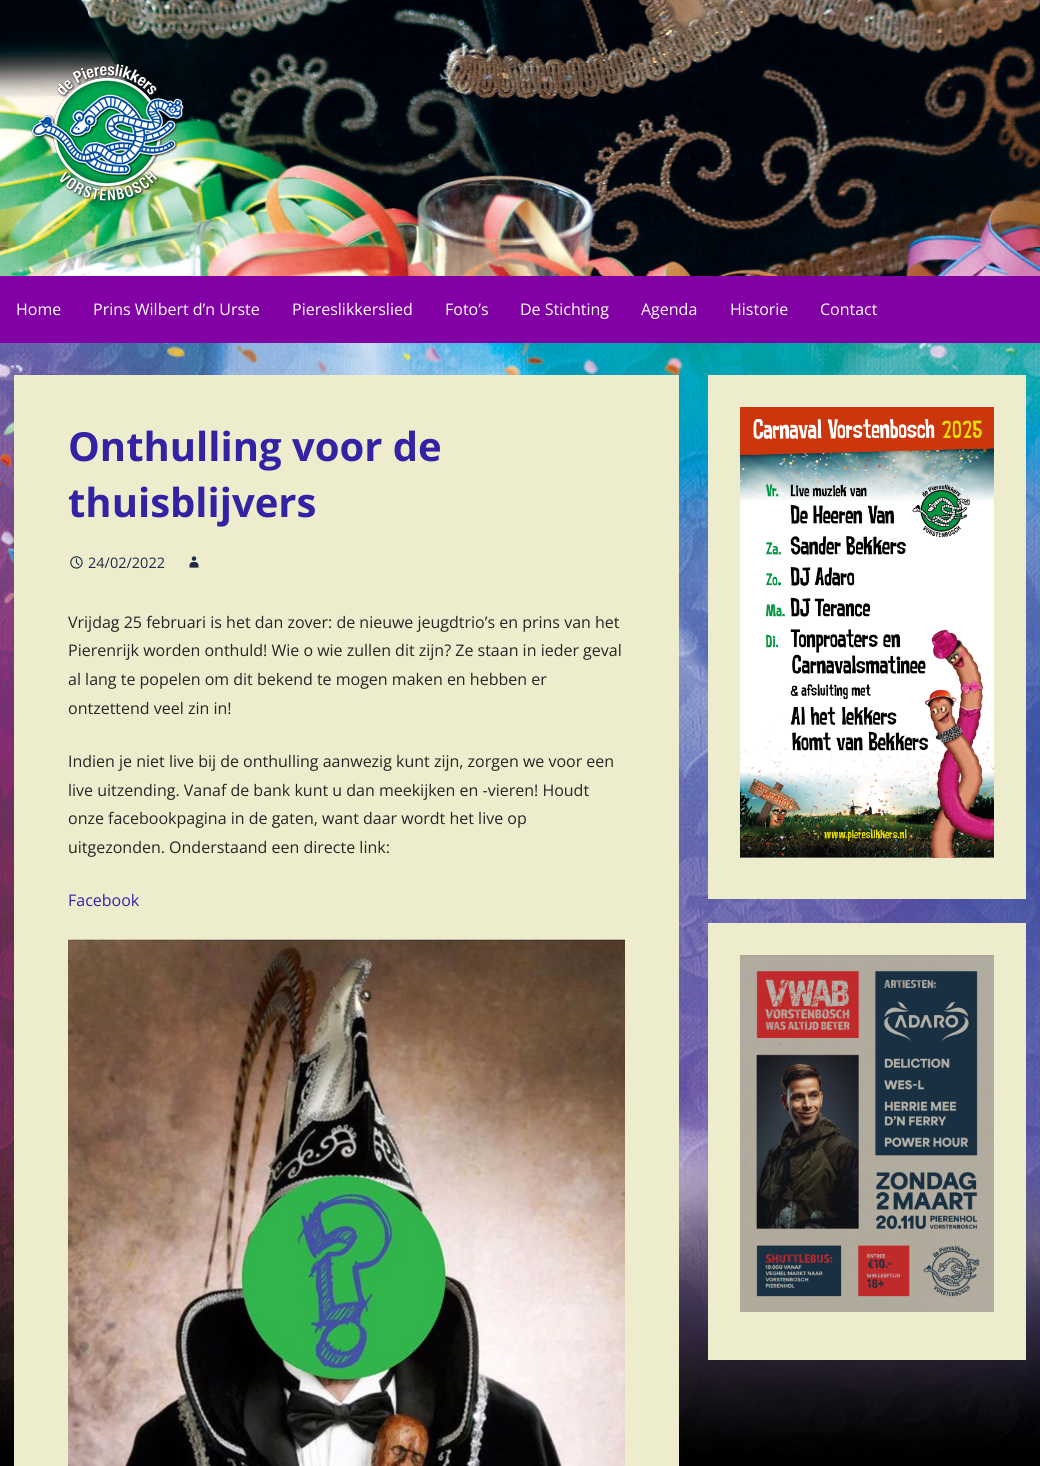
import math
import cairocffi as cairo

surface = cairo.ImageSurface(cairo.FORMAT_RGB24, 1040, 1466)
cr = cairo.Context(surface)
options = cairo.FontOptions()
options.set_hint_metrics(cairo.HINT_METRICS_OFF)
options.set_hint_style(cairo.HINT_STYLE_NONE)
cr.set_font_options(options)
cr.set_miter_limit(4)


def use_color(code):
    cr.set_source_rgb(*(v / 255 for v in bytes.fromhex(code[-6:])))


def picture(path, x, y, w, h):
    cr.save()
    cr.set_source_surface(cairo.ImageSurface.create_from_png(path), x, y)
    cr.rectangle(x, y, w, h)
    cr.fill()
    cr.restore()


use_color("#ffffff")
cr.paint()
picture("img1.png", 0, 343, 1040, 1123)
picture("img2.png", 0, 0, 1040, 276)
picture("img3.png", 31, 63, 154, 140)
use_color("#8201a5")
cr.rectangle(0, 276, 1040, 67)
cr.fill()
cr.select_font_face("Open Sans")
cr.set_font_size(16)
use_color("#ffffff")
cr.move_to(16, 315)
cr.show_text("Home")
cr.move_to(93, 315)
cr.show_text("Prins Wilbert d’n Urste")
cr.move_to(292, 315)
cr.show_text("Piereslikkerslied")
cr.move_to(445, 315)
cr.show_text("Foto’s")
cr.move_to(520, 315)
cr.show_text("De Stichting")
cr.move_to(641, 315)
cr.show_text("Agenda")
cr.move_to(730, 315)
cr.show_text("Historie")
cr.move_to(820, 315)
cr.show_text("Contact")
use_color("#ededce")
cr.rectangle(14, 375, 665, 1091)
cr.fill()
cr.select_font_face("Open Sans", cairo.FONT_SLANT_NORMAL, cairo.FONT_WEIGHT_BOLD)
cr.set_font_size(40)
use_color("#3322a3")
cr.move_to(68, 461)
cr.show_text("Onthulling voor de")
cr.move_to(68, 517)
cr.show_text("thuisblijvers")
picture("img4.png", 70, 556, 13, 13)
cr.select_font_face("Open Sans")
cr.set_font_size(14.5)
use_color("#1e2a47")
cr.move_to(88, 568)
cr.show_text("24/02/2022")
picture("img5.png", 189, 556, 10, 12)
cr.set_font_size(16)
use_color("#252525")
cr.move_to(68, 628)
cr.show_text("Vrijdag 25 februari is het dan zover: de nieuwe jeugdtrio’s en prins van het")
cr.move_to(68, 656)
cr.show_text("Pierenrijk worden onthuld! Wie o wie zullen dit zijn? Ze staan in ieder geval")
cr.move_to(68, 685)
cr.show_text("al lang te popelen om dit bekend te mogen maken en hebben er")
cr.move_to(68, 714)
cr.show_text("ontzettend veel zin in!")
cr.move_to(68, 767)
cr.show_text("Indien je niet live bij de onthulling aanwezig kunt zijn, zorgen we voor een")
cr.move_to(68, 796)
cr.show_text("live uitzending. Vanaf de bank kunt u dan meekijken en -vieren! Houdt")
cr.move_to(68, 824)
cr.show_text("onze facebookpagina in de gaten, want daar wordt het live op")
cr.move_to(68, 853)
cr.show_text("uitgezonden. Onderstaand een directe link:")
use_color("#3322a3")
cr.move_to(68, 906)
cr.show_text("Facebook")
picture("img6.png", 68, 939, 557, 527)
use_color("#ededce")
cr.rectangle(708, 375, 318, 524)
cr.fill()
picture("img7.png", 740, 407, 254, 451)
cr.rectangle(708, 923, 318, 437)
cr.fill()
picture("img8.png", 740, 955, 254, 357)
surface.write_to_png("result.png")
